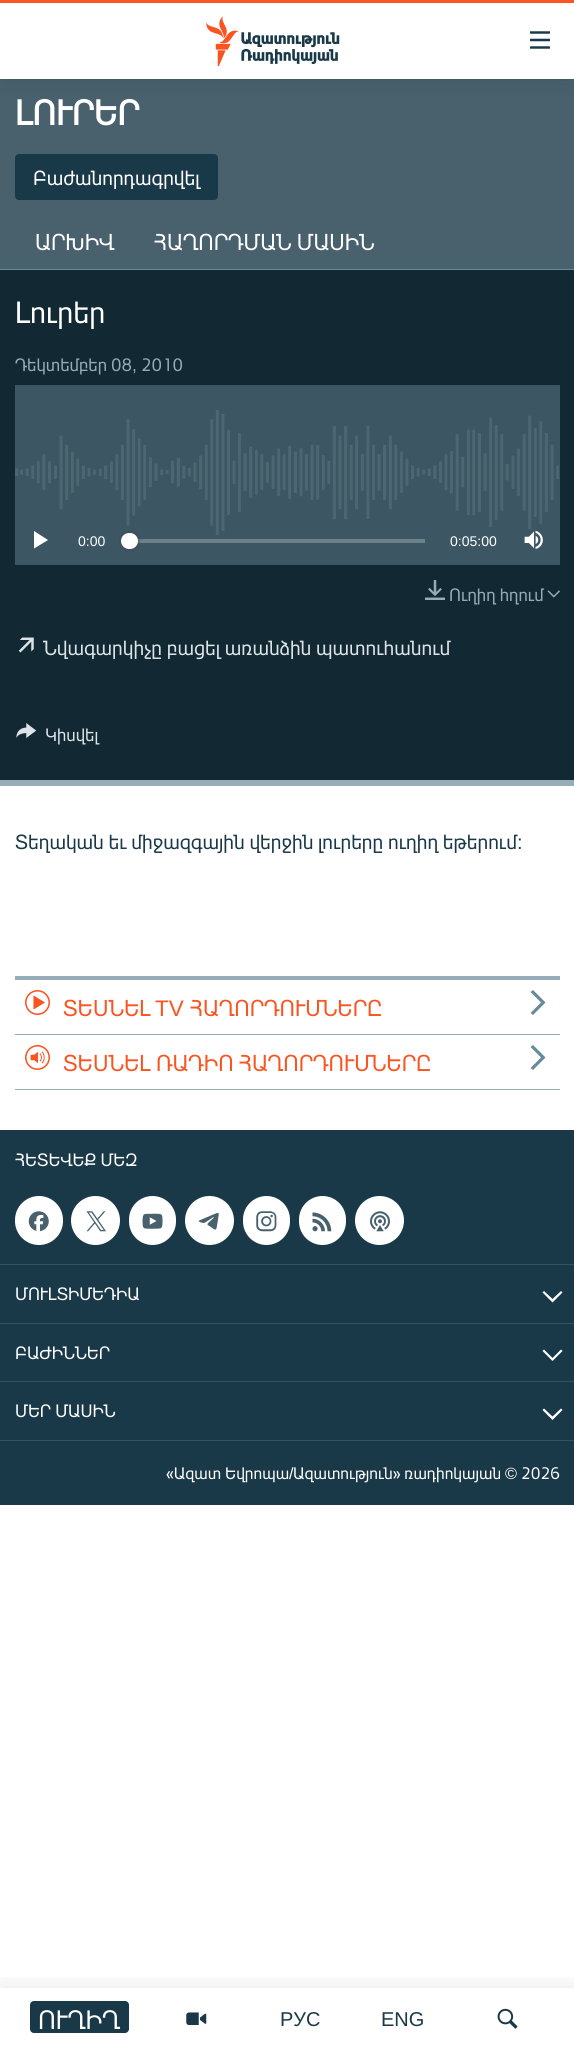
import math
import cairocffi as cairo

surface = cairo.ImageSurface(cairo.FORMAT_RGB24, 574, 2050)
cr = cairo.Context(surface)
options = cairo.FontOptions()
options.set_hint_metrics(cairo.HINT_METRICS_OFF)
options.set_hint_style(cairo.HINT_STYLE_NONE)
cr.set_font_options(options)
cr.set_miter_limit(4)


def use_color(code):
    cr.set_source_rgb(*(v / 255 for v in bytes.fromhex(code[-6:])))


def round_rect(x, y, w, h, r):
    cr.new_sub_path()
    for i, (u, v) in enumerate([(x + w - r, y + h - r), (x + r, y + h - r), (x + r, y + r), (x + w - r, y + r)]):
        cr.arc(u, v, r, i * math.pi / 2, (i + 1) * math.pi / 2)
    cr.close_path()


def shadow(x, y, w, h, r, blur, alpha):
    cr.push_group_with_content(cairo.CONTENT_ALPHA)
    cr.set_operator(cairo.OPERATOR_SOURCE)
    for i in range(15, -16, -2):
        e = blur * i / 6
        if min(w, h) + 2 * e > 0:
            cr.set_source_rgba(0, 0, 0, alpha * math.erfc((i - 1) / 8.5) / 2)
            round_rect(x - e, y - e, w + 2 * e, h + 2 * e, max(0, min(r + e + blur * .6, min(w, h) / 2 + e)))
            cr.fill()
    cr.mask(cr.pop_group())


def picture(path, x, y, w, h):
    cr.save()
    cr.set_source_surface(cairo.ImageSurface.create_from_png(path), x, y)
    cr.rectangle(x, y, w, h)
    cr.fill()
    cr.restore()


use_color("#ffffff")
cr.paint()
use_color("#48616d")
cr.rectangle(0, 79, 574, 190)
cr.fill()
cr.select_font_face("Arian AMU", cairo.FONT_SLANT_NORMAL, cairo.FONT_WEIGHT_BOLD)
cr.set_font_size(34.5)
use_color("#ffffff")
cr.move_to(15, 125)
cr.show_text("ԼՈՒՐԵՐ")
use_color("#1a3948")
round_rect(15, 154, 203, 46, 4)
cr.fill()
cr.select_font_face("Arian AMU")
cr.set_font_size(20)
use_color("#ffffff")
cr.move_to(33, 185)
cr.show_text("Բաժանորդագրվել")
cr.set_font_size(22.5)
cr.move_to(35, 250)
cr.show_text("ԱՐԽԻՎ")
cr.move_to(154, 250)
cr.show_text("ՀԱՂՈՐԴՄԱՆ ՄԱՍԻՆ")
use_color("#122832")
cr.rectangle(0, 270, 574, 510)
cr.fill()
use_color("#678a9b")
cr.rectangle(0, 269, 574, 1)
cr.fill()
use_color("#95adb9")
cr.rectangle(0, 780, 574, 6)
cr.fill()
cr.set_font_size(30)
use_color("#ffffff")
cr.move_to(15, 323)
cr.show_text("Լուրեր")
cr.set_font_size(17.5)
use_color("#95adb9")
cr.move_to(15, 371)
cr.show_text("Դեկտեմբեր 08")
cr.select_font_face("Liberation Sans")
cr.move_to(132, 371)
cr.show_text(",")
cr.select_font_face("Arian AMU")
cr.move_to(141, 371)
cr.show_text("2010")
use_color("#3c5763")
cr.rectangle(15, 385, 545, 180)
cr.fill()
picture("img1.png", 15, 410, 544, 125)
use_color("#ffffff")
cr.new_path()
cr.move_to(34, 548.5)
cr.line_to(48, 540)
cr.line_to(34, 531)
cr.close_path()
cr.fill()
cr.select_font_face("Liberation Sans")
cr.set_font_size(14)
cr.move_to(78, 546)
cr.show_text("0:00")
use_color("#6d818a")
cr.rectangle(129, 539, 296, 4)
cr.fill()
use_color("#414144")
shadow(121, 533, 17, 16, 8, 2, 1)
use_color("#ffffff")
round_rect(121, 533, 17, 16, 8)
cr.fill()
cr.move_to(450, 546)
cr.show_text("0:05:00")
picture("img2.png", 524, 530, 19, 19)
picture("img3.png", 425, 580, 20, 20)
cr.select_font_face("Arian AMU")
cr.set_font_size(17.5)
use_color("#95adb9")
cr.move_to(449, 601)
cr.show_text("Ուղիղ հղում")
picture("img4.png", 547, 590, 13, 8)
picture("img5.png", 18, 637, 16, 16)
cr.set_font_size(20)
use_color("#dce4e8")
cr.move_to(43, 655)
cr.show_text("Նվագարկիչը բացել առանձին պատուհանում")
picture("img6.png", 16, 723, 21, 15)
cr.set_font_size(17.5)
cr.move_to(45, 741)
cr.show_text("Կիսվել")
cr.set_font_size(20)
use_color("#1a3948")
cr.move_to(15, 849)
cr.show_text("Տեղական եւ միջազգային վերջին լուրերը ուղիղ եթերում")
cr.select_font_face("Liberation Sans")
cr.move_to(517, 849)
cr.show_text(":")
use_color("#95adb9")
cr.rectangle(15, 976, 545, 4)
cr.fill()
cr.rectangle(15, 1034, 545, 1)
cr.fill()
picture("img7.png", 25, 990, 25, 25)
cr.select_font_face("Arian AMU")
cr.set_font_size(22.5)
use_color("#fa5420")
cr.move_to(63, 1016)
cr.show_text("ՏԵՍՆԵԼ")
cr.select_font_face("Liberation Sans")
cr.move_to(155, 1016)
cr.show_text("TV")
cr.select_font_face("Arian AMU")
cr.move_to(190, 1016)
cr.show_text("ՀԱՂՈՐԴՈՒՄՆԵՐԸ")
use_color("#678a9b")
cr.new_path()
cr.move_to(533, 1015)
cr.line_to(545.5, 1002.5)
cr.line_to(533, 990)
cr.line_to(530.5, 992)
cr.line_to(541, 1002.5)
cr.line_to(530.5, 1013)
cr.close_path()
cr.fill()
use_color("#95adb9")
cr.rectangle(15, 1089, 545, 1)
cr.fill()
picture("img8.png", 25, 1045, 25, 25)
use_color("#fa5420")
cr.move_to(63, 1071)
cr.show_text("ՏԵՍՆԵԼ ՌԱԴԻՈ ՀԱՂՈՐԴՈՒՄՆԵՐԸ")
use_color("#678a9b")
cr.new_path()
cr.move_to(533, 1070)
cr.line_to(545.5, 1057.5)
cr.line_to(533, 1045)
cr.line_to(530.5, 1047)
cr.line_to(541, 1057.5)
cr.line_to(530.5, 1068)
cr.close_path()
cr.fill()
use_color("#1a3948")
cr.rectangle(0, 1130, 574, 375)
cr.fill()
use_color("#3e4f57")
cr.rectangle(0, 1440, 574, 1)
cr.fill()
cr.set_font_size(17.5)
use_color("#ffffff")
cr.move_to(15, 1166)
cr.show_text("ՀԵՏԵՎԵՔ ՄԵԶ")
round_rect(15, 1196, 48, 49, 24)
cr.fill()
picture("img9.png", 28, 1211, 21, 21)
cr.arc(95.5, 1220.5, 24.5, 0, 2 * math.pi)
cr.fill()
picture("img10.png", 86, 1211, 20, 21)
round_rect(129, 1196, 47, 49, 23.5)
cr.fill()
picture("img11.png", 142, 1213, 21, 16)
cr.arc(209.5, 1220.5, 24.5, 0, 2 * math.pi)
cr.fill()
picture("img12.png", 198, 1213, 21, 17)
round_rect(243, 1196, 47, 49, 23.5)
cr.fill()
picture("img13.png", 256, 1211, 21, 21)
round_rect(299, 1196, 47, 49, 23.5)
cr.fill()
picture("img14.png", 312, 1212, 20, 20)
cr.arc(379.5, 1220.5, 24.5, 0, 2 * math.pi)
cr.fill()
picture("img15.png", 370, 1211, 20, 21)
use_color("#3e4f57")
cr.rectangle(0, 1264, 574, 1)
cr.fill()
use_color("#ffffff")
cr.move_to(15, 1300)
cr.show_text("ՄՈՒԼՏԻՄԵԴԻԱ")
cr.new_path()
cr.move_to(542.5, 1292.5)
cr.line_to(552.5, 1302.5)
cr.line_to(562.5, 1292.5)
cr.line_to(561, 1291)
cr.line_to(552.5, 1299)
cr.line_to(544, 1291)
cr.close_path()
cr.fill()
use_color("#3e4f57")
cr.rectangle(0, 1323, 574, 1)
cr.fill()
use_color("#ffffff")
cr.move_to(15, 1359)
cr.show_text("ԲԱԺԻՆՆԵՐ")
cr.new_path()
cr.move_to(542.5, 1351)
cr.line_to(552.5, 1361)
cr.line_to(562.5, 1351)
cr.line_to(561, 1349.5)
cr.line_to(552.5, 1358)
cr.line_to(544, 1349.5)
cr.close_path()
cr.fill()
use_color("#3e4f57")
cr.rectangle(0, 1381, 574, 1)
cr.fill()
use_color("#ffffff")
cr.move_to(15, 1417)
cr.show_text("ՄԵՐ ՄԱՍԻՆ")
cr.new_path()
cr.move_to(542.5, 1410)
cr.line_to(552.5, 1420)
cr.line_to(562.5, 1410)
cr.line_to(561, 1408.5)
cr.line_to(552.5, 1416.5)
cr.line_to(544, 1408.5)
cr.close_path()
cr.fill()
cr.set_font_size(16.25)
cr.move_to(166, 1479)
cr.show_text("«Ազատ Եվրոպա")
cr.select_font_face("Liberation Sans")
cr.move_to(289, 1479)
cr.show_text("/")
cr.select_font_face("Arian AMU")
cr.move_to(293, 1479)
cr.show_text("Ազատություն» ռադիոկայան")
cr.select_font_face("Liberation Sans")
cr.move_to(505, 1479)
cr.show_text("©")
cr.select_font_face("Arian AMU")
cr.move_to(521, 1479)
cr.show_text("2026")
use_color("#000000")
shadow(0, 0, 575, 79, 0, 12.5, 0.1)
use_color("#ffffff")
cr.rectangle(0, 3, 574, 76)
cr.fill()
use_color("#fa5420")
cr.rectangle(0, 0, 574, 3)
cr.fill()
picture("img16.png", 206, 16, 134, 50)
picture("img17.png", 530, 31, 20, 18)
cr.save()
cr.rectangle(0, 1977, 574, 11)
cr.clip()
use_color("#000000")
shadow(0, 1988, 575, 62, 0, 12.5, 0.1)
cr.restore()
use_color("#1a3948")
round_rect(30, 2001, 99, 32, 4)
cr.fill()
cr.set_font_size(26)
use_color("#ffffff")
cr.move_to(38, 2029)
cr.show_text("ՈՒՂԻՂ")
picture("img18.png", 186, 2012, 21, 13)
cr.select_font_face("Liberation Sans")
cr.set_font_size(20)
use_color("#1a3948")
cr.move_to(280, 2026)
cr.show_text("РУС")
cr.move_to(381, 2026)
cr.show_text("ENG")
picture("img19.png", 497, 2008, 21, 21)
surface.write_to_png("result.png")
